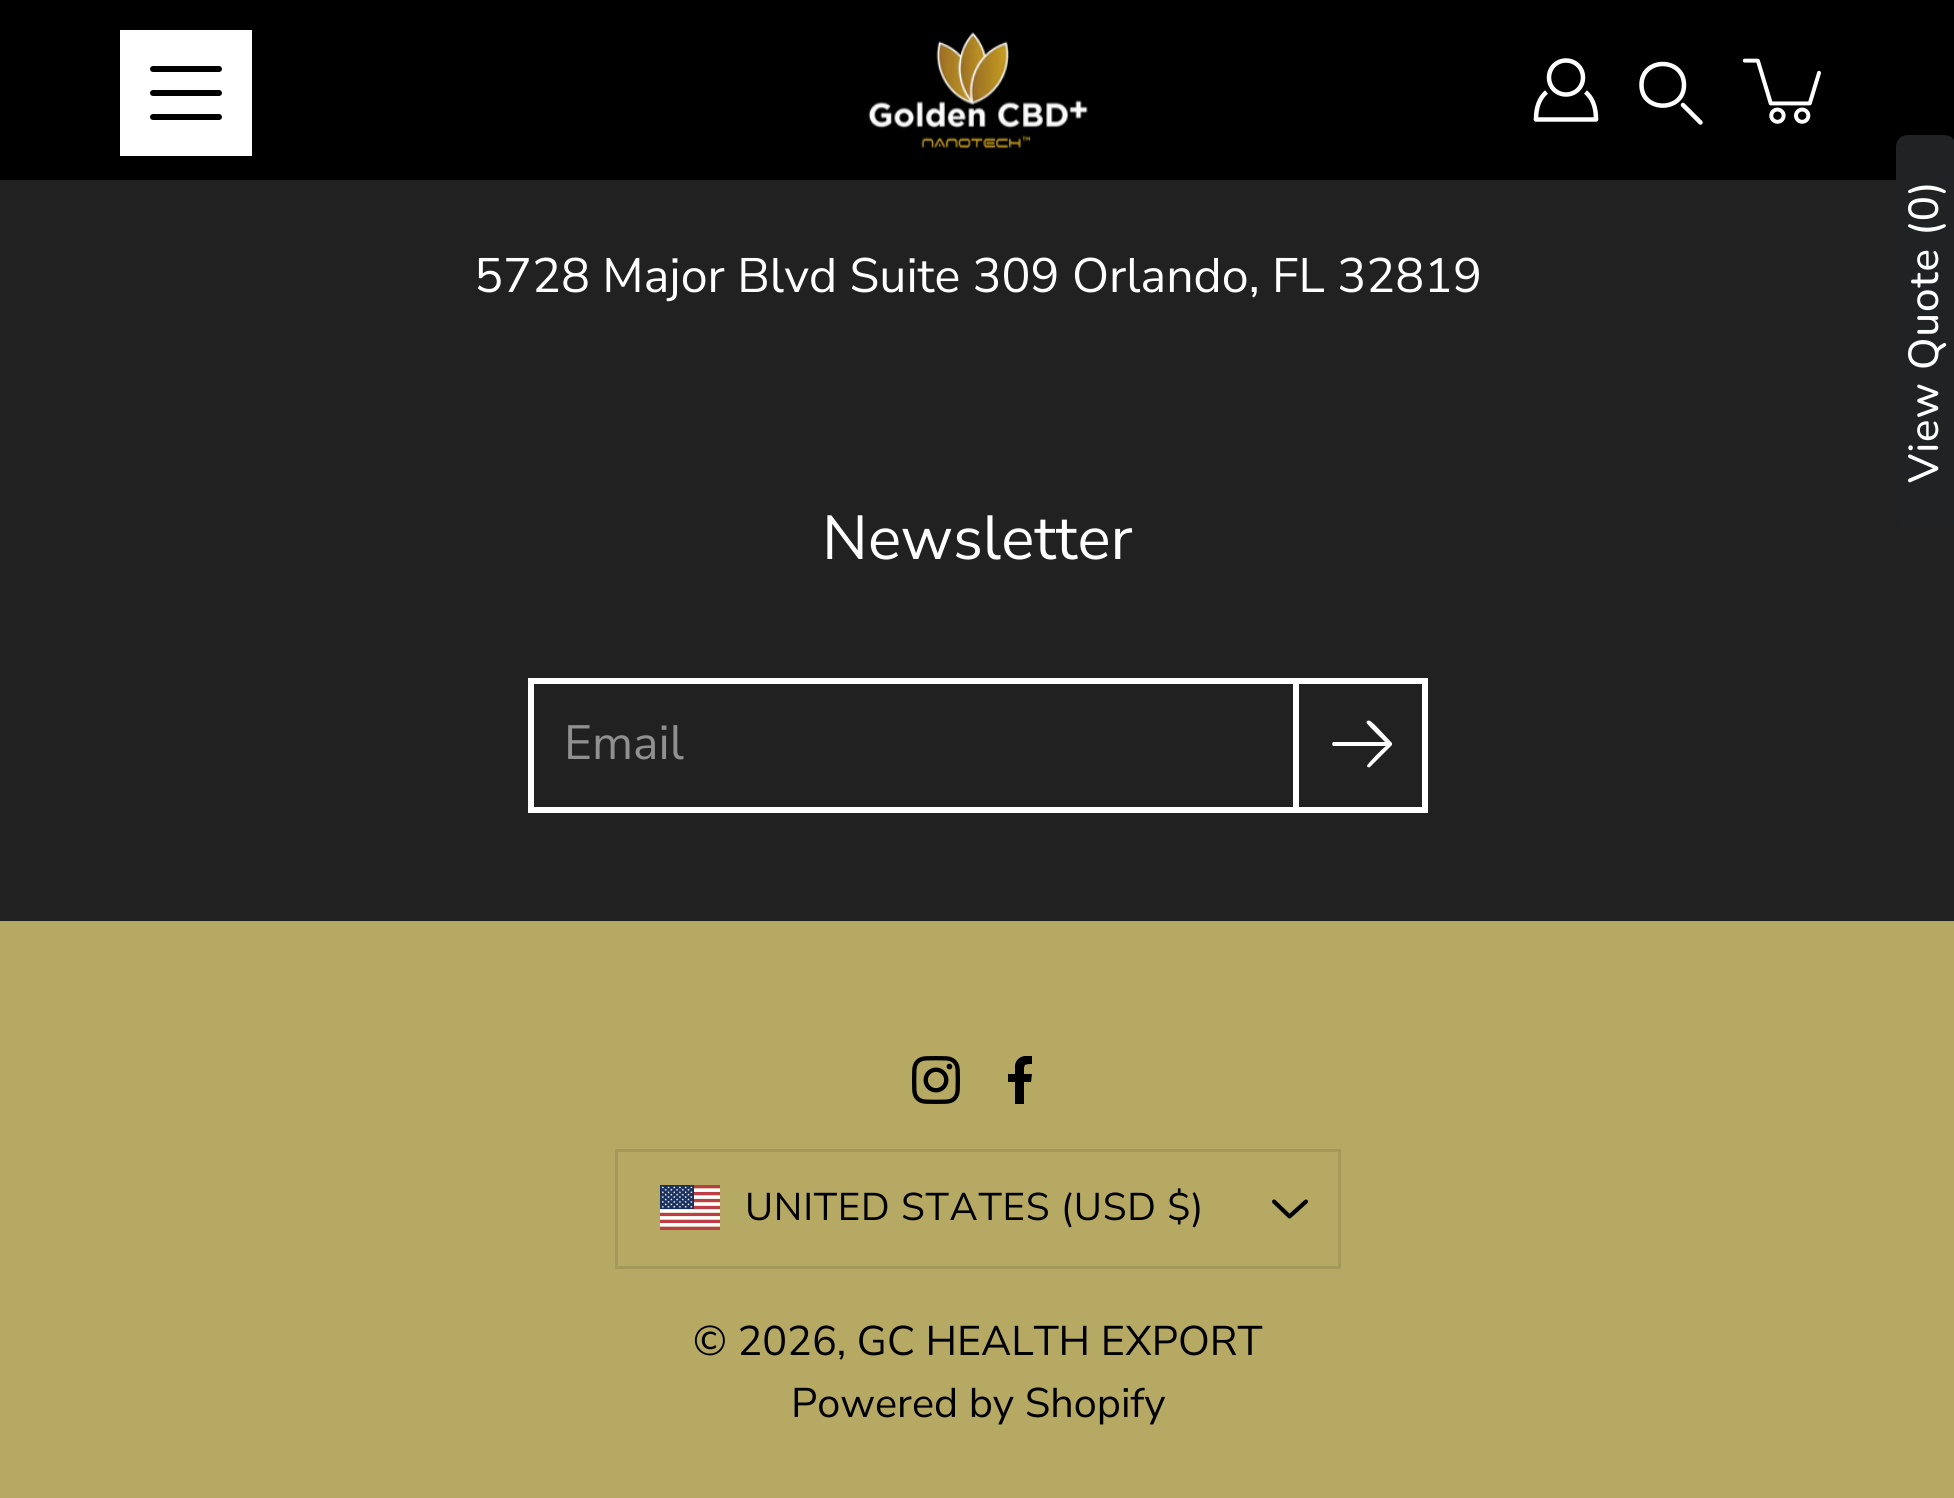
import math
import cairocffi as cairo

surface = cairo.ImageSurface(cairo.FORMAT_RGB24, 1954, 1498)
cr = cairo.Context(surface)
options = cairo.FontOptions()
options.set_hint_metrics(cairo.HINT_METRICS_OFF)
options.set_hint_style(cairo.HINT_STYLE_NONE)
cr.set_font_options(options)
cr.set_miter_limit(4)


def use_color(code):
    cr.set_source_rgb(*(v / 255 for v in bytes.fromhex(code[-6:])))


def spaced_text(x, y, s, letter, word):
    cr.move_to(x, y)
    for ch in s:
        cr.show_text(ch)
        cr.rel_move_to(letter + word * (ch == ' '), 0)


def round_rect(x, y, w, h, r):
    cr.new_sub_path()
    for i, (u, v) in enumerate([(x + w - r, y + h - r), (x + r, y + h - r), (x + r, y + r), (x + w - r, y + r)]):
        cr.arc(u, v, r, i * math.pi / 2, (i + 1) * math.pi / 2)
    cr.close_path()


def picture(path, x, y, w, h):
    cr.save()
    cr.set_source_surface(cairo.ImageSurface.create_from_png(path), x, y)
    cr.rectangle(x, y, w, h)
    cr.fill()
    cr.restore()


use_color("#212121")
cr.paint()
use_color("#000000")
cr.rectangle(0, 0, 1954, 180)
cr.fill()
use_color("#ffffff")
cr.rectangle(120, 30, 132, 126)
cr.fill()
use_color("#000000")
round_rect(150, 90, 72, 6, 3)
cr.fill()
round_rect(150, 66, 72, 6, 3)
cr.fill()
round_rect(150, 114, 72, 6, 3)
cr.fill()
cr.new_path()
cr.move_to(1583, 77.5)
cr.curve_to(1583, 87, 1575.5, 94.5, 1566, 94.5)
cr.curve_to(1556.5, 94.5, 1549, 87, 1549, 77.5)
cr.curve_to(1549, 68, 1556.5, 60.5, 1566, 60.5)
cr.curve_to(1575.5, 60.5, 1583, 68, 1583, 77.5)
cr.close_path()
use_color("#ffffff")
cr.set_line_width(4.5)
cr.stroke()
cr.new_path()
cr.move_to(1546.5, 92)
cr.curve_to(1539.5, 98, 1536, 107, 1536, 119.5)
cr.move_to(1585.5, 92)
cr.curve_to(1592.5, 98, 1596, 107, 1596, 119.5)
cr.set_line_join(cairo.LINE_JOIN_ROUND)
cr.stroke()
cr.new_path()
cr.move_to(1536, 119.5)
cr.line_to(1596, 119.5)
cr.set_line_cap(cairo.LINE_CAP_ROUND)
cr.stroke()
cr.new_path()
cr.move_to(1684, 85)
cr.curve_to(1684, 112.5, 1641.5, 112.5, 1641.5, 85)
cr.curve_to(1641.5, 57, 1684, 57, 1684, 85)
cr.close_path()
cr.set_line_cap(cairo.LINE_CAP_BUTT)
cr.set_line_join(cairo.LINE_JOIN_MITER)
cr.stroke()
cr.new_path()
cr.move_to(1683, 105)
cr.line_to(1700.5, 122.5)
cr.set_line_cap(cairo.LINE_CAP_ROUND)
cr.stroke()
picture("img1.png", 1742, 58, 79, 66)
picture("img2.png", 868, 32, 220, 117)
cr.select_font_face("Nunito Sans")
cr.set_font_size(48.3)
cr.move_to(474, 292)
cr.show_text("5728 Major Blvd Suite 309 Orlando, FL 32819")
cr.set_font_size(62)
cr.move_to(822, 559)
cr.show_text("Newsletter")
cr.rectangle(531, 681, 894, 129)
cr.set_line_width(6)
cr.set_line_cap(cairo.LINE_CAP_BUTT)
cr.stroke()
cr.set_font_size(48)
use_color("#909090")
cr.move_to(564, 759)
cr.show_text("Email")
cr.rectangle(1296, 681, 129, 129)
use_color("#ffffff")
cr.stroke()
cr.new_path()
cr.move_to(1392, 744)
cr.line_to(1392, 743)
cr.line_to(1374, 724)
cr.curve_to(1373, 724, 1370, 719, 1367, 721)
cr.curve_to(1365, 723, 1370, 726, 1370, 727)
cr.line_to(1385, 742)
cr.line_to(1333, 742)
cr.curve_to(1332, 743, 1332, 745, 1333, 746)
cr.line_to(1386, 746)
cr.curve_to(1383, 748, 1367, 764, 1367, 766)
cr.curve_to(1367, 767, 1369, 768, 1370, 767)
cr.line_to(1392, 745)
cr.close_path()
cr.fill()
use_color("#b6a964")
cr.rectangle(0, 921, 1954, 577)
cr.fill()
picture("img3.png", 912, 1056, 48, 48)
cr.save()
cr.rectangle(993, 1056, 54, 48)
cr.clip()
use_color("#000000")
cr.new_path()
cr.move_to(1032, 1064)
cr.curve_to(1023, 1064, 1024, 1065, 1024, 1074)
cr.line_to(1032, 1074)
cr.line_to(1031, 1082)
cr.line_to(1024, 1082)
cr.line_to(1024, 1104)
cr.line_to(1015, 1104)
cr.line_to(1015, 1082)
cr.line_to(1008, 1082)
cr.line_to(1008, 1074)
cr.line_to(1015, 1074)
cr.line_to(1015, 1065)
cr.curve_to(1017, 1056, 1025, 1055, 1032, 1056)
cr.close_path()
cr.fill()
cr.restore()
cr.rectangle(616.5, 1150.5, 723, 117)
use_color("#a4985a")
cr.set_line_width(3)
cr.stroke()
picture("img4.png", 660, 1185, 60, 45)
cr.set_font_size(38.6)
use_color("#000000")
spaced_text(745, 1220, "UNITED STATES (USD $)", 0.75, 0)
picture("img5.png", 1272, 1199, 36, 20)
cr.set_font_size(41.4)
cr.move_to(693, 1355)
cr.show_text("© 2026, GC HEALTH EXPORT")
cr.move_to(791, 1417)
cr.show_text("Powered by Shopify")
use_color("#202223")
cr.new_path()
cr.move_to(1896, 516)
cr.line_to(1896, 147)
cr.curve_to(1896, 140, 1901, 135, 1908, 135)
cr.line_to(1944, 135)
cr.curve_to(1951, 135, 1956, 140, 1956, 147)
cr.line_to(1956, 516)
cr.curve_to(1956, 523, 1951, 528, 1944, 528)
cr.line_to(1908, 528)
cr.curve_to(1901, 528, 1896, 523, 1896, 516)
cr.close_path()
cr.fill()
cr.select_font_face("Nunito Medium")
cr.set_font_size(42)
use_color("#ffffff")
cr.save()
cr.translate(1938, 483)
cr.rotate(-90 * math.pi / 180)
spaced_text(0, 0, "View Quote (0)", 1, 0)
cr.restore()
surface.write_to_png("result.png")
